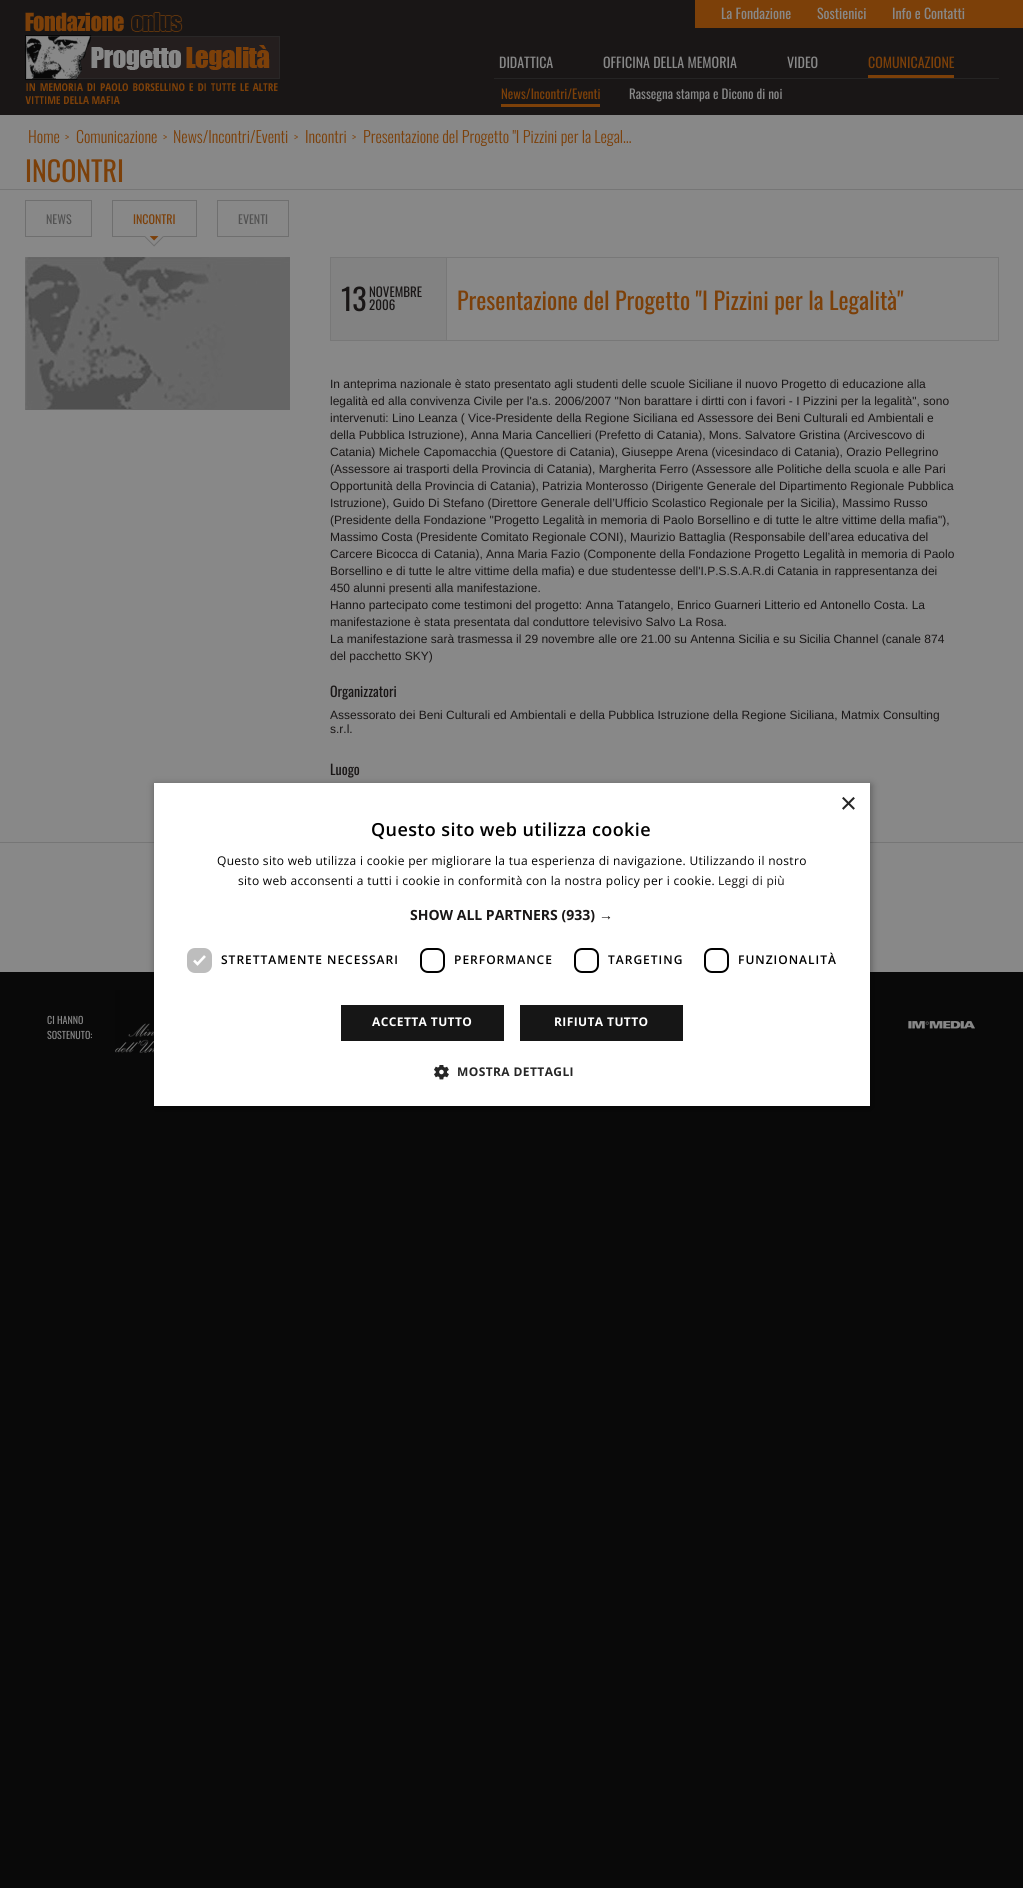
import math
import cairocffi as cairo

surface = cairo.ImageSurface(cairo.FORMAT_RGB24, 1023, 1888)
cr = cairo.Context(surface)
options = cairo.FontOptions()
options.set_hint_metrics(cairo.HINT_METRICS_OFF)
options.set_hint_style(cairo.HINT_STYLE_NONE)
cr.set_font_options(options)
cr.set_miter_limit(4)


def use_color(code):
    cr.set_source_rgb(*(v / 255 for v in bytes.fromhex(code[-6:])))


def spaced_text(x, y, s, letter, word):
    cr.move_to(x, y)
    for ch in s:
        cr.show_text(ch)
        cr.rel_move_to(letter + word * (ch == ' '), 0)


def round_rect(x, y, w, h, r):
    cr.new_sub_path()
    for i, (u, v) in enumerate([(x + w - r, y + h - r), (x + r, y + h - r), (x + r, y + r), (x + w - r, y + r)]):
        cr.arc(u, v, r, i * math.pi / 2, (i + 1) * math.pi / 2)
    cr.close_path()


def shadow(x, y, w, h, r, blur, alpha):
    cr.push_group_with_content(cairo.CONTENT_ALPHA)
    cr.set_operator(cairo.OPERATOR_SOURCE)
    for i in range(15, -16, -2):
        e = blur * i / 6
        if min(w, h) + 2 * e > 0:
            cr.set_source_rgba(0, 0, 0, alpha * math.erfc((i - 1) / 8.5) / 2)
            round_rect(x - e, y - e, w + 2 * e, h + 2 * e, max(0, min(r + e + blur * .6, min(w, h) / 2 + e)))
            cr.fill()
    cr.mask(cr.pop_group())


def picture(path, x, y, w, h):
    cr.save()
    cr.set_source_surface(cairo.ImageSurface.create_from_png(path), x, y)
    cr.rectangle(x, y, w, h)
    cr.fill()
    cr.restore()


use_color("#090909")
cr.paint()
use_color("#191616")
cr.rectangle(0, 0, 1023, 115)
cr.fill()
picture("img1.png", 25, 12, 255, 92)
use_color("#7c4009")
cr.rectangle(695, 0, 328, 28)
cr.fill()
cr.select_font_face("Oswald")
cr.set_font_size(14)
use_color("#888888")
cr.move_to(721, 19)
cr.show_text("La Fondazione")
cr.move_to(817, 19)
cr.show_text("Sostienici")
cr.move_to(892, 19)
cr.show_text("Info e Contatti")
use_color("#252424")
cr.rectangle(494, 78, 505, 1)
cr.fill()
use_color("#888888")
cr.move_to(499, 68)
cr.show_text("DIDATTICA")
cr.move_to(603, 68)
cr.show_text("OFFICINA DELLA MEMORIA")
cr.move_to(787, 68)
cr.show_text("VIDEO")
use_color("#7c4009")
cr.rectangle(868, 75, 86, 3)
cr.fill()
cr.move_to(868, 68)
cr.show_text("COMUNICAZIONE")
cr.rectangle(501, 104, 99, 3)
cr.fill()
cr.set_font_size(13)
cr.move_to(501, 99)
cr.show_text("News/Incontri/Eventi")
use_color("#888888")
cr.move_to(629, 99)
cr.show_text("Rassegna stampa e Dicono di noi")
cr.rectangle(0, 115, 1023, 857)
cr.fill()
use_color("#767676")
cr.rectangle(0, 189, 1023, 1)
cr.fill()
cr.select_font_face("Oswald Light")
cr.set_font_size(16)
use_color("#7c4009")
cr.move_to(28, 143)
cr.show_text("Home")
cr.set_font_size(12)
cr.move_to(65, 142)
cr.show_text(">")
cr.set_font_size(16)
cr.move_to(76, 143)
cr.show_text("Comunicazione")
cr.set_font_size(12)
cr.move_to(163, 142)
cr.show_text(">")
cr.set_font_size(16)
cr.move_to(173, 143)
cr.show_text("News/Incontri/Eventi")
cr.set_font_size(12)
cr.move_to(294, 142)
cr.show_text(">")
cr.set_font_size(16)
cr.move_to(305, 143)
cr.show_text("Incontri")
cr.set_font_size(12)
cr.move_to(352, 142)
cr.show_text(">")
cr.set_font_size(16)
cr.move_to(363, 143)
cr.show_text("Presentazione del Progetto \"I Pizzini per la Legal…")
cr.select_font_face("Oswald")
cr.set_font_size(28)
cr.move_to(25, 182)
cr.show_text("INCONTRI")
cr.rectangle(25.5, 200.5, 66, 36)
use_color("#6f6f6f")
cr.set_line_width(1)
cr.stroke()
cr.set_font_size(12)
use_color("#525252")
cr.move_to(46, 224)
cr.show_text("NEWS")
cr.rectangle(112.5, 200.5, 84, 36)
use_color("#6f6f6f")
cr.stroke()
picture("img2.png", 145, 236, 19, 11)
use_color("#7c4009")
cr.move_to(133, 224)
cr.show_text("INCONTRI")
cr.rectangle(217.5, 200.5, 71, 36)
use_color("#6f6f6f")
cr.stroke()
use_color("#525252")
cr.move_to(238, 224)
cr.show_text("EVENTI")
picture("img3.png", 25, 257, 265, 153)
cr.rectangle(330.5, 257.5, 668, 83)
use_color("#787878")
cr.stroke()
use_color("#828282")
cr.rectangle(331, 258, 115, 82)
cr.fill()
use_color("#787878")
cr.rectangle(446, 258, 1, 82)
cr.fill()
cr.set_font_size(30)
use_color("#191616")
cr.move_to(341, 311)
cr.show_text("13")
cr.set_font_size(13)
cr.move_to(369, 297)
cr.show_text("NOVEMBRE")
cr.move_to(369, 310)
cr.show_text("2006")
cr.set_font_size(24)
use_color("#7c4009")
cr.move_to(457, 310)
cr.show_text("Presentazione del Progetto \"I Pizzini per la Legalità\"")
cr.select_font_face("Liberation Sans")
cr.set_font_size(12)
use_color("#191616")
cr.move_to(330, 388)
cr.show_text("In anteprima nazionale è stato presentato agli studenti delle scuole Siciliane il nuovo Progetto di educazione alla")
cr.move_to(330, 405)
cr.show_text("legalità ed alla convivenza Civile per l'a.s. 2006/2007 \"Non barattare i dirtti con i favori - I Pizzini per la legalità\", sono")
cr.move_to(330, 422)
cr.show_text("intervenuti: Lino Leanza ( Vice-Presidente della Regione Siciliana ed Assessore dei Beni Culturali ed Ambientali e")
cr.move_to(330, 439)
cr.show_text("della Pubblica Istruzione), Anna Maria Cancellieri (Prefetto di Catania), Mons. Salvatore Gristina (Arcivescovo di")
cr.move_to(330, 456)
cr.show_text("Catania) Michele Capomacchia (Questore di Catania), Giuseppe Arena (vicesindaco di Catania), Orazio Pellegrino")
cr.move_to(330, 473)
cr.show_text("(Assessore ai trasporti della Provincia di Catania), Margherita Ferro (Assessore alle Politiche della scuola e alle Pari")
cr.move_to(330, 490)
cr.show_text("Opportunità della Provincia di Catania), Patrizia Monterosso (Dirigente Generale del Dipartimento Regionale Pubblica")
cr.move_to(330, 507)
cr.show_text("Istruzione), Guido Di Stefano (Direttore Generale dell’Ufficio Scolastico Regionale per la Sicilia), Massimo Russo")
cr.move_to(330, 524)
cr.show_text("(Presidente della Fondazione \"Progetto Legalità in memoria di Paolo Borsellino e di tutte le altre vittime della mafia\"),")
cr.move_to(330, 541)
cr.show_text("Massimo Costa (Presidente Comitato Regionale CONI), Maurizio Battaglia (Responsabile dell’area educativa del")
cr.move_to(330, 558)
cr.show_text("Carcere Bicocca di Catania), Anna Maria Fazio (Componente della Fondazione Progetto Legalità in memoria di Paolo")
cr.move_to(330, 575)
cr.show_text("Borsellino e di tutte le altre vittime della mafia) e due studentesse dell'I.P.S.S.A.R.di Catania in rappresentanza dei")
cr.move_to(330, 592)
cr.show_text("450 alunni presenti alla manifestazione.")
cr.move_to(330, 609)
cr.show_text("Hanno partecipato come testimoni del progetto: Anna Tatangelo, Enrico Guarneri Litterio ed Antonello Costa. La")
cr.move_to(330, 626)
cr.show_text("manifestazione è stata presentata dal conduttore televisivo Salvo La Rosa.")
cr.move_to(330, 643)
cr.show_text("La manifestazione sarà trasmessa il 29 novembre alle ore 21.00 su Antenna Sicilia e su Sicilia Channel (canale 874")
cr.move_to(330, 660)
cr.show_text("del pacchetto SKY)")
cr.select_font_face("Oswald")
cr.set_font_size(14)
cr.move_to(330, 697)
cr.show_text("Organizzatori")
cr.select_font_face("Liberation Sans")
cr.set_font_size(12)
cr.move_to(330, 719)
cr.show_text("Assessorato dei Beni Culturali ed Ambientali e della Pubblica Istruzione della Regione Siciliana, Matmix Consulting")
cr.move_to(330, 733)
cr.show_text("s.r.l.")
cr.select_font_face("Oswald")
cr.set_font_size(14)
cr.move_to(330, 775)
cr.show_text("Luogo")
use_color("#767676")
cr.rectangle(0, 842, 1023, 1)
cr.fill()
cr.set_font_size(10)
use_color("#888888")
cr.move_to(47, 1024)
cr.show_text("CI HANNO")
cr.move_to(47, 1039)
cr.show_text("SOSTENUTO:")
picture("img4.png", 115, 990, 39, 63)
picture("img5.png", 908, 1021, 67, 8)
use_color("#000000")
shadow(155, 785, 716, 323, 0, 4, 0.35)
use_color("#ffffff")
cr.rectangle(154, 783, 716, 323)
cr.fill()
cr.select_font_face("Liberation Sans")
cr.set_font_size(29)
use_color("#262626")
cr.move_to(840, 813)
cr.show_text("×")
cr.select_font_face("Open Sans SemiBold")
cr.set_font_size(18)
use_color("#000000")
spaced_text(371, 836, "Questo sito web utilizza cookie", 0.4, 0)
cr.select_font_face("Open Sans")
cr.set_font_size(12)
spaced_text(217, 865, "Questo sito web utilizza i cookie per migliorare la tua esperienza di navigazione. Utilizzando il nostro", 0.3, 0)
spaced_text(238, 885, "sito web acconsenti a tutti i cookie in conformità con la nostra policy per i cookie.", 0.3, 0)
use_color("#191616")
spaced_text(718, 885, "Leggi di più", 0.3, 0)
cr.select_font_face("Open Sans", cairo.FONT_SLANT_NORMAL, cairo.FONT_WEIGHT_BOLD)
cr.set_font_size(14)
cr.move_to(410, 920)
cr.show_text("SHOW ALL PARTNERS (933)")
cr.select_font_face("Liberation Sans", cairo.FONT_SLANT_NORMAL, cairo.FONT_WEIGHT_BOLD)
cr.move_to(599, 920)
cr.show_text("→")
use_color("#bdbdbd")
round_rect(187, 948, 25, 25, 8)
cr.fill()
cr.new_path()
cr.move_to(194, 960.5)
cr.line_to(197.5, 964)
cr.line_to(205, 956)
use_color("#ffffff")
cr.set_line_width(2.6)
cr.stroke()
cr.select_font_face("Open Sans SemiBold")
cr.set_font_size(12)
use_color("#000000")
spaced_text(221, 964, "STRETTAMENTE NECESSARI", 1, 0)
round_rect(421, 949, 23, 23, 7)
cr.set_line_width(2)
cr.stroke()
spaced_text(454, 964, "PERFORMANCE", 1, 0)
round_rect(575, 949, 23, 23, 7)
cr.stroke()
spaced_text(608, 964, "TARGETING", 1, 0)
round_rect(705, 949, 23, 23, 7)
cr.stroke()
spaced_text(738, 964, "FUNZIONALITÀ", 1, 0)
use_color("#161616")
cr.rectangle(341, 1005, 163, 36)
cr.fill()
cr.select_font_face("Open Sans", cairo.FONT_SLANT_NORMAL, cairo.FONT_WEIGHT_BOLD)
use_color("#ffffff")
spaced_text(372, 1026, "ACCETTA TUTTO", 0.4, 0)
use_color("#161616")
cr.rectangle(520, 1005, 163, 36)
cr.fill()
use_color("#ffffff")
spaced_text(554, 1026, "RIFIUTA TUTTO", 0.4, 0)
picture("img6.png", 434, 1065, 15, 15)
use_color("#262626")
spaced_text(457, 1076, "MOSTRA DETTAGLI", 0.4, 0)
surface.write_to_png("result.png")
